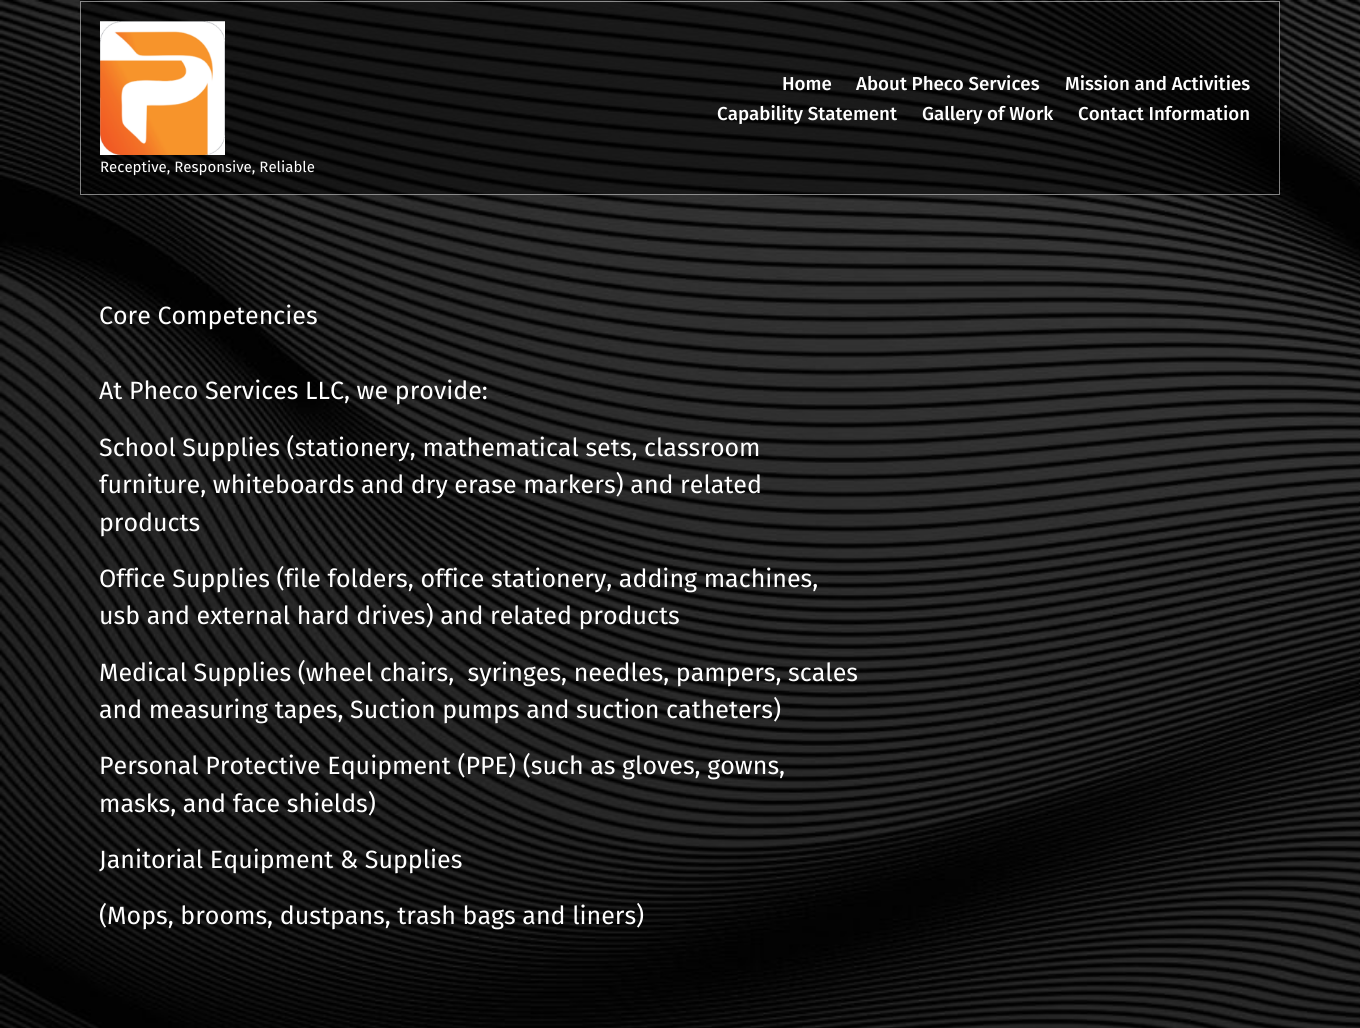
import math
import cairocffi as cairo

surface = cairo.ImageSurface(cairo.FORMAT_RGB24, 1360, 1028)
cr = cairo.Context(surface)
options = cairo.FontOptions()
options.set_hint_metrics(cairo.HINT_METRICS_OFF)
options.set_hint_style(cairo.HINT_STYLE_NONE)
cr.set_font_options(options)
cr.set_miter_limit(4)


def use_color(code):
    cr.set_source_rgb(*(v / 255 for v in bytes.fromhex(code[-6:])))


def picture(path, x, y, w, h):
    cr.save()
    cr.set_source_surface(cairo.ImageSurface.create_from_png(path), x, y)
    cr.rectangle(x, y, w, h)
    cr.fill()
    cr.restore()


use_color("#ffffff")
cr.paint()
picture("img1.png", 0, 0, 1360, 1028)
cr.set_source_rgba(0, 0, 0, 0.5)
cr.rectangle(80, 0, 1200, 1)
cr.fill()
cr.rectangle(80, 1, 1200, 194)
cr.fill()
cr.rectangle(80.5, 1.5, 1199, 193)
cr.set_source_rgba(1, 1, 1, 0.5)
cr.set_line_width(1)
cr.stroke()
cr.select_font_face("Fira Sans Medium")
cr.set_font_size(18.75)
use_color("#ffffff")
cr.move_to(782, 90)
cr.show_text("Home")
cr.move_to(856, 90)
cr.show_text("About Pheco Services")
cr.move_to(1065, 90)
cr.show_text("Mission and Activities")
cr.move_to(717, 120)
cr.show_text("Capability Statement")
cr.move_to(922, 120)
cr.show_text("Gallery of Work")
cr.move_to(1078, 120)
cr.show_text("Contact Information")
picture("img2.png", 100, 21, 125, 134)
cr.select_font_face("Fira Sans")
cr.set_font_size(15)
cr.move_to(100, 172)
cr.show_text("Receptive, Responsive, Reliable")
cr.set_font_size(25)
cr.move_to(99, 324)
cr.show_text("Core Competencies")
cr.move_to(99, 399)
cr.show_text("At Pheco Services LLC, we provide:")
cr.move_to(99, 456)
cr.show_text("School Supplies (stationery, mathematical sets, classroom")
cr.move_to(99, 493)
cr.show_text("furniture, whiteboards and dry erase markers) and related")
cr.move_to(99, 531)
cr.show_text("products")
cr.move_to(99, 587)
cr.show_text("Office Supplies (file folders, office stationery, adding machines,")
cr.move_to(99, 624)
cr.show_text("usb and external hard drives) and related products")
cr.move_to(99, 681)
cr.show_text("Medical Supplies (wheel chairs,  syringes, needles, pampers, scales")
cr.move_to(99, 718)
cr.show_text("and measuring tapes, Suction pumps and suction catheters)")
cr.move_to(99, 774)
cr.show_text("Personal Protective Equipment (PPE) (such as gloves, gowns,")
cr.move_to(99, 812)
cr.show_text("masks, and face shields)")
cr.move_to(99, 868)
cr.show_text("Janitorial Equipment & Supplies")
cr.move_to(99, 924)
cr.show_text("(Mops, brooms, dustpans, trash bags and liners)")
surface.write_to_png("result.png")
